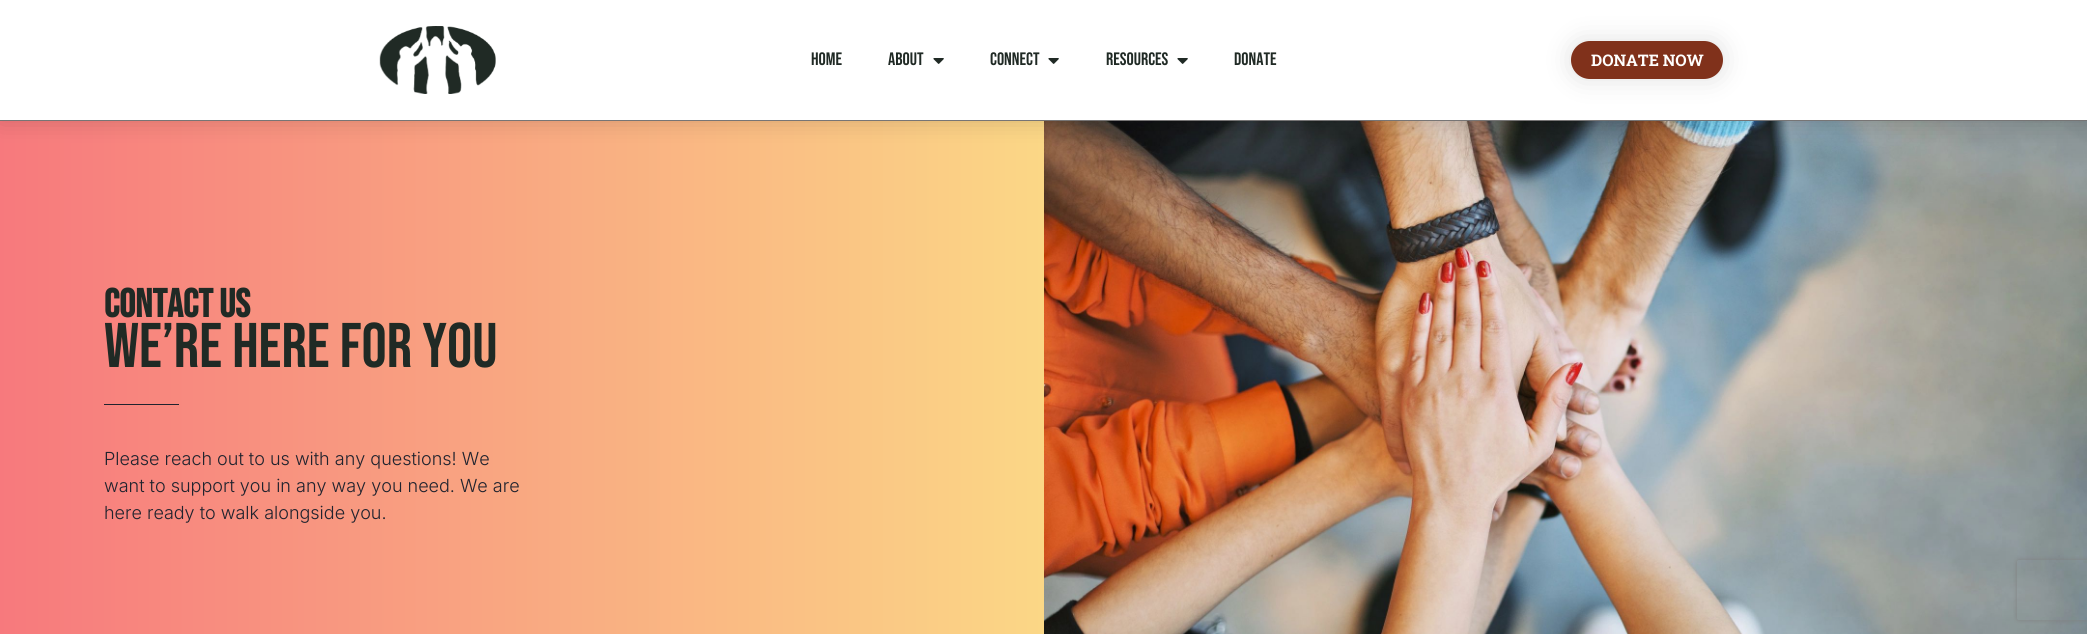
import math
import cairocffi as cairo

surface = cairo.ImageSurface(cairo.FORMAT_RGB24, 2087, 634)
cr = cairo.Context(surface)
options = cairo.FontOptions()
options.set_hint_metrics(cairo.HINT_METRICS_OFF)
options.set_hint_style(cairo.HINT_STYLE_NONE)
cr.set_font_options(options)
cr.set_miter_limit(4)


def use_color(code):
    cr.set_source_rgb(*(v / 255 for v in bytes.fromhex(code[-6:])))


def round_rect(x, y, w, h, r):
    cr.new_sub_path()
    for i, (u, v) in enumerate([(x + w - r, y + h - r), (x + r, y + h - r), (x + r, y + r), (x + w - r, y + r)]):
        cr.arc(u, v, r, i * math.pi / 2, (i + 1) * math.pi / 2)
    cr.close_path()


def shadow(x, y, w, h, r, blur, alpha):
    cr.push_group_with_content(cairo.CONTENT_ALPHA)
    cr.set_operator(cairo.OPERATOR_SOURCE)
    for i in range(15, -16, -2):
        e = blur * i / 6
        if min(w, h) + 2 * e > 0:
            cr.set_source_rgba(0, 0, 0, alpha * math.erfc((i - 1) / 8.5) / 2)
            round_rect(x - e, y - e, w + 2 * e, h + 2 * e, max(0, min(r + e + blur * .6, min(w, h) / 2 + e)))
            cr.fill()
    cr.mask(cr.pop_group())


def picture(path, x, y, w, h):
    cr.save()
    cr.set_source_surface(cairo.ImageSurface.create_from_png(path), x, y)
    cr.rectangle(x, y, w, h)
    cr.fill()
    cr.restore()


use_color("#ffffff")
cr.paint()
gradient = cairo.LinearGradient(0, 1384, 2087, 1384)
gradient.add_color_stop_rgba(0, 0.969, 0.475, 0.49, 1)
gradient.add_color_stop_rgba(0.5, 0.984, 0.843, 0.525, 1)
gradient.add_color_stop_rgba(1, 0.776, 1, 0.867, 1)
cr.set_source(gradient)
cr.rectangle(0, 121, 1044, 513)
cr.fill()
picture("img3.png", 1044, 121, 1043, 513)
use_color("#000000")
shadow(0, 0, 2087, 121, 0, 12, 0.15)
use_color("#ffffff")
cr.rectangle(0, 0, 2087, 120)
cr.fill()
use_color("#777575")
cr.rectangle(0, 120, 2087, 1)
cr.fill()
picture("img1.png", 379, 26, 117, 68)
cr.select_font_face("Bebas Neue")
cr.set_font_size(18)
use_color("#202a25")
cr.move_to(811, 65)
cr.show_text("Home")
cr.move_to(888, 65)
cr.show_text("About")
picture("img2.png", 933, 58, 11, 6)
cr.move_to(990, 65)
cr.show_text("Connect")
picture("img2.png", 1048, 58, 11, 6)
cr.move_to(1106, 65)
cr.show_text("Resources")
picture("img2.png", 1177, 58, 11, 6)
cr.move_to(1234, 65)
cr.show_text("Donate")
use_color("#000000")
shadow(1571, 41, 152, 38, 19, 13.5, 0.12)
use_color("#80311b")
round_rect(1571, 41, 152, 38, 19)
cr.fill()
cr.select_font_face("Roboto Slab", cairo.FONT_SLANT_NORMAL, cairo.FONT_WEIGHT_BOLD)
cr.set_font_size(16)
use_color("#ffffff")
cr.move_to(1591, 66)
cr.show_text("DONATE NOW")
cr.select_font_face("Bebas Neue", cairo.FONT_SLANT_NORMAL, cairo.FONT_WEIGHT_BOLD)
cr.set_font_size(40)
use_color("#202a25")
cr.move_to(104, 317)
cr.show_text("Contact us")
cr.select_font_face("Bebas Neue")
cr.set_font_size(63)
cr.move_to(104, 367)
cr.show_text("we’re here for you")
use_color("#20232e")
cr.rectangle(104, 404, 75, 1)
cr.fill()
cr.select_font_face("Inter Light")
cr.set_font_size(18)
cr.move_to(104, 465)
cr.show_text("Please reach out to us with any questions! We")
cr.move_to(104, 492)
cr.show_text("want to support you in any way you need. We are")
cr.move_to(104, 519)
cr.show_text("here ready to walk alongside you.")
cr.save()
cr.set_fill_rule(cairo.FILL_RULE_EVEN_ODD)
cr.new_path()
cr.move_to(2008, 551)
cr.line_to(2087, 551)
cr.line_to(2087, 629)
cr.line_to(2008, 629)
cr.close_path()
cr.move_to(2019, 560)
cr.line_to(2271, 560)
cr.curve_to(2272, 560, 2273, 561, 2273, 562)
cr.line_to(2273, 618)
cr.curve_to(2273, 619, 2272, 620, 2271, 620)
cr.line_to(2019, 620)
cr.curve_to(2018, 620, 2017, 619, 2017, 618)
cr.line_to(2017, 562)
cr.curve_to(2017, 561, 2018, 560, 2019, 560)
cr.close_path()
cr.clip()
use_color("#808080")
shadow(2017, 560, 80, 60, 2, 2.5, 1)
cr.restore()
surface.write_to_png("result.png")
